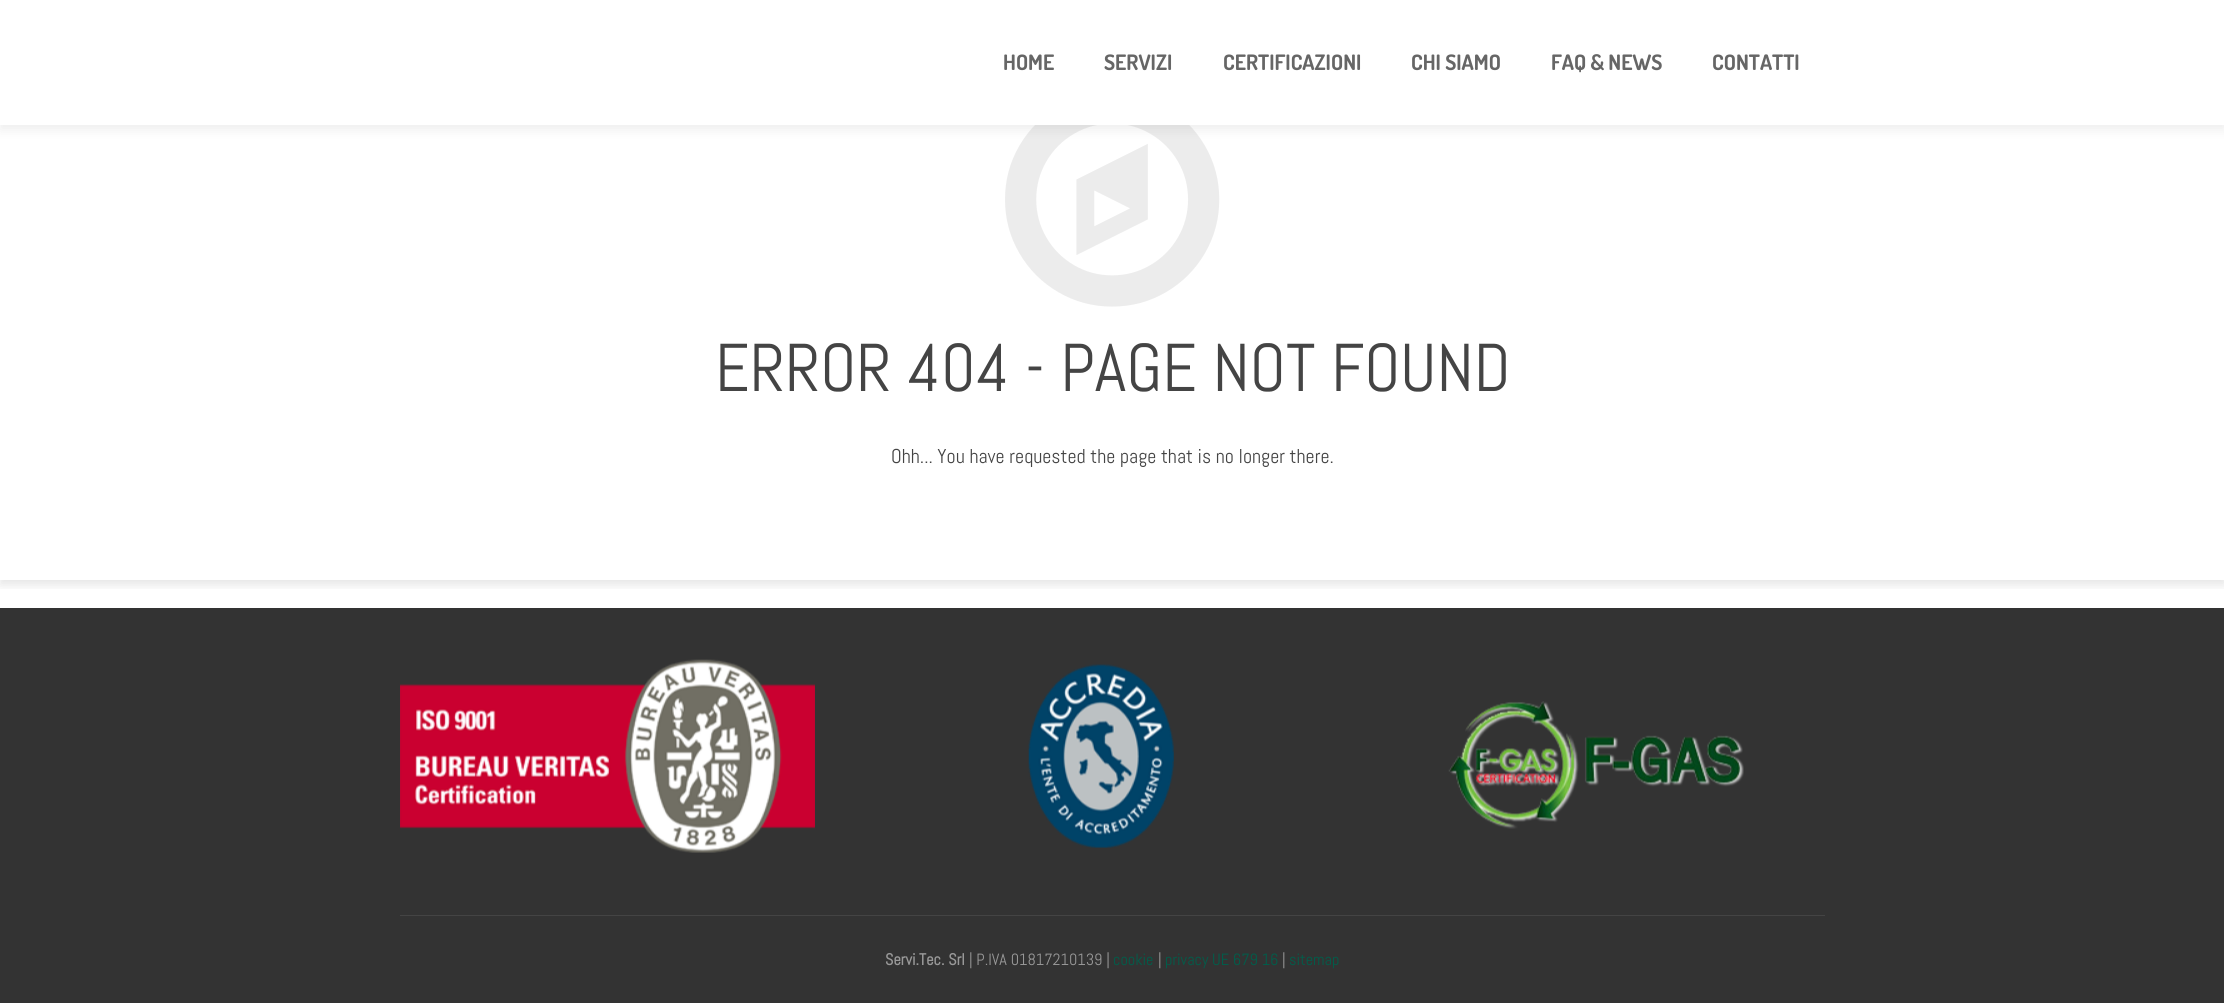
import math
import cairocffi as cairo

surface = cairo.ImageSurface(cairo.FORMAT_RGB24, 2224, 1003)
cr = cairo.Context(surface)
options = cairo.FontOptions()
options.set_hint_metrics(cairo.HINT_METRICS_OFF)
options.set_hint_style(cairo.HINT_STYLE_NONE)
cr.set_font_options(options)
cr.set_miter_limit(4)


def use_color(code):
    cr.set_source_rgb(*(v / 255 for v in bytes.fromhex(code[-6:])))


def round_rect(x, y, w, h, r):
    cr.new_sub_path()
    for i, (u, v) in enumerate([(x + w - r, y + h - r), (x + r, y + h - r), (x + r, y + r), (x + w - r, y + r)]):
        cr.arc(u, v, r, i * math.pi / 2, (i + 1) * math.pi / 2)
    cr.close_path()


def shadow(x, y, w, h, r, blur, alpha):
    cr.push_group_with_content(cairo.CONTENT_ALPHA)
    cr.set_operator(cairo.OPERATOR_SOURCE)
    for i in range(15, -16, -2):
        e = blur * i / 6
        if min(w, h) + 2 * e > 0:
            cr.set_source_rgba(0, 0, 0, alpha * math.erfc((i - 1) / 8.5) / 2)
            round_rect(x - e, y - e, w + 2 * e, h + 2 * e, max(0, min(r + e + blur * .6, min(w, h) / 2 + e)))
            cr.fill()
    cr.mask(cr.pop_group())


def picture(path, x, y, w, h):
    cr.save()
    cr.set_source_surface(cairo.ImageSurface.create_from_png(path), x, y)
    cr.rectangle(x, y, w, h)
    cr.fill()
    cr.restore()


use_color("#ffffff")
cr.paint()
cr.save()
cr.rectangle(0, 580, 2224, 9)
cr.clip()
use_color("#000000")
shadow(0, 5, 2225, 580, 0, 5, 0.1)
cr.restore()
picture("img1.png", 1005, 125, 215, 182)
use_color("#000000")
shadow(0, 5, 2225, 125, 0, 6, 0.07)
use_color("#ffffff")
cr.rectangle(0, 0, 2224, 125)
cr.fill()
cr.select_font_face("Dosis", cairo.FONT_SLANT_NORMAL, cairo.FONT_WEIGHT_BOLD)
cr.set_font_size(21.25)
use_color("#666666")
cr.move_to(1003, 70)
cr.show_text("HOME")
cr.move_to(1104, 70)
cr.show_text("SERVIZI")
cr.move_to(1223, 70)
cr.show_text("CERTIFICAZIONI")
cr.move_to(1411, 70)
cr.show_text("CHI SIAMO")
cr.move_to(1551, 70)
cr.show_text("FAQ & NEWS")
cr.move_to(1712, 70)
cr.show_text("CONTATTI")
cr.select_font_face("Abel")
cr.set_font_size(67.5)
use_color("#444444")
cr.move_to(715, 391)
cr.show_text("ERROR 404 - PAGE NOT FOUND")
cr.set_font_size(20)
cr.move_to(891, 463)
cr.show_text("Ohh... You have requested the page that is no longer there.")
use_color("#333333")
cr.rectangle(0, 608, 2224, 395)
cr.fill()
use_color("#444444")
cr.rectangle(400, 915, 1425, 1)
cr.fill()
picture("img2.png", 400, 659, 415, 194)
picture("img3.png", 1028, 664, 146, 184)
picture("img4.png", 1448, 701, 296, 128)
cr.select_font_face("Abel", cairo.FONT_SLANT_NORMAL, cairo.FONT_WEIGHT_BOLD)
cr.set_font_size(16.25)
use_color("#999999")
cr.move_to(885, 965)
cr.show_text("Servi.Tec. Srl")
cr.select_font_face("Abel")
cr.move_to(969, 965)
cr.show_text("| P.IVA 01817210139 |")
use_color("#005e4b")
cr.move_to(1113, 965)
cr.show_text("cookie")
use_color("#999999")
cr.move_to(1158, 965)
cr.show_text("|")
use_color("#005e4b")
cr.move_to(1165, 965)
cr.show_text("privacy UE 679 16")
use_color("#999999")
cr.move_to(1282, 965)
cr.show_text("|")
use_color("#005e4b")
cr.move_to(1289, 965)
cr.show_text("sitemap")
surface.write_to_png("result.png")
